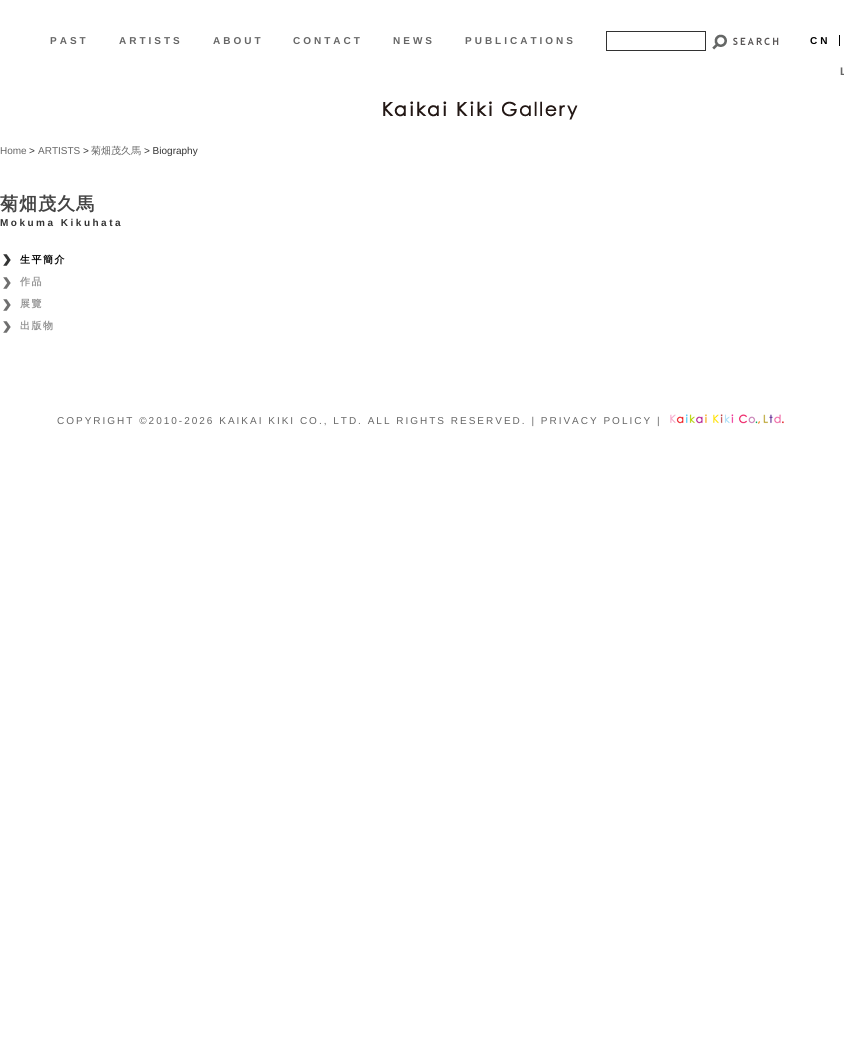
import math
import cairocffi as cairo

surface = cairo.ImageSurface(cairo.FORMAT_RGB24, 844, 1063)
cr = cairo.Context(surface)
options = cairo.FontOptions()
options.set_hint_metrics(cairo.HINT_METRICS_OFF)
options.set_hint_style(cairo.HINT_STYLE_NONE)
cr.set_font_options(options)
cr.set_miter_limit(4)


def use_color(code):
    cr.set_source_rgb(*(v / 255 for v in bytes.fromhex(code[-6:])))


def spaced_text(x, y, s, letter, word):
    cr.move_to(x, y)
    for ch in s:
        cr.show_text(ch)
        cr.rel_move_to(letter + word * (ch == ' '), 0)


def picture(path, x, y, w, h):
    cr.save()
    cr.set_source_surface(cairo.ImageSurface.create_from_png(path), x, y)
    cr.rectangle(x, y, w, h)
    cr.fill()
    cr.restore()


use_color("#ffffff")
cr.paint()
cr.select_font_face("Liberation Sans", cairo.FONT_SLANT_NORMAL, cairo.FONT_WEIGHT_BOLD)
cr.set_font_size(10)
use_color("#666666")
spaced_text(50, 44, "PAST", 3, 0)
spaced_text(119, 44, "ARTISTS", 3, 0)
spaced_text(213, 44, "ABOUT", 3, 0)
spaced_text(293, 44, "CONTACT", 3, 0)
spaced_text(393, 44, "NEWS", 3, 0)
spaced_text(465, 44, "PUBLICATIONS", 3, 0)
cr.rectangle(606.5, 31.5, 99, 19)
use_color("#323232")
cr.set_line_width(1)
cr.stroke()
picture("img1.png", 712, 34, 67, 16)
use_color("#000000")
spaced_text(810, 44, "CN", 3, 0)
cr.rectangle(839, 35, 1, 11)
cr.fill()
cr.set_font_size(11)
use_color("#666666")
spaced_text(840, 75, "L", 3, 0)
picture("img2.png", 383, 101, 195, 19)
cr.select_font_face("Liberation Sans")
cr.set_font_size(10)
cr.move_to(0, 154)
cr.show_text("Home")
use_color("#333333")
cr.move_to(29, 154)
cr.show_text(">")
use_color("#666666")
cr.move_to(38, 154)
cr.show_text("ARTISTS")
use_color("#333333")
cr.move_to(83, 154)
cr.show_text(">")
cr.select_font_face("WenQuanYi Zen Hei Medium")
use_color("#666666")
cr.move_to(91, 154)
cr.show_text("菊畑茂久馬")
cr.select_font_face("Liberation Sans")
use_color("#333333")
cr.move_to(144, 154)
cr.show_text("> Biography")
cr.select_font_face("WenQuanYi Zen Hei", cairo.FONT_SLANT_NORMAL, cairo.FONT_WEIGHT_BOLD)
cr.set_font_size(18)
use_color("#444444")
spaced_text(0, 210, "菊畑茂久馬", 1, 0)
cr.select_font_face("Liberation Sans", cairo.FONT_SLANT_NORMAL, cairo.FONT_WEIGHT_BOLD)
cr.set_font_size(10)
use_color("#333333")
spaced_text(0, 226, "Mokuma Kikuhata", 2.5, 0)
picture("img3.png", 3, 254, 8, 12)
cr.select_font_face("WenQuanYi Zen Hei", cairo.FONT_SLANT_NORMAL, cairo.FONT_WEIGHT_BOLD)
use_color("#000000")
spaced_text(20, 263, "生平簡介", 1.5, 0)
picture("img4.png", 3, 277, 8, 12)
use_color("#949494")
spaced_text(20, 285, "作品", 1.5, 0)
picture("img4.png", 3, 299, 8, 12)
spaced_text(20, 307, "展覽", 1.5, 0)
picture("img4.png", 3, 321, 8, 12)
spaced_text(20, 329, "出版物", 1.5, 0)
cr.select_font_face("Liberation Sans")
use_color("#666666")
spaced_text(57, 424, "COPYRIGHT ©2010-2026 KAIKAI KIKI CO., LTD. ALL RIGHTS RESERVED. | PRIVACY POLICY |", 2, 0)
picture("img5.png", 670, 414, 114, 10)
surface.write_to_png("result.png")
